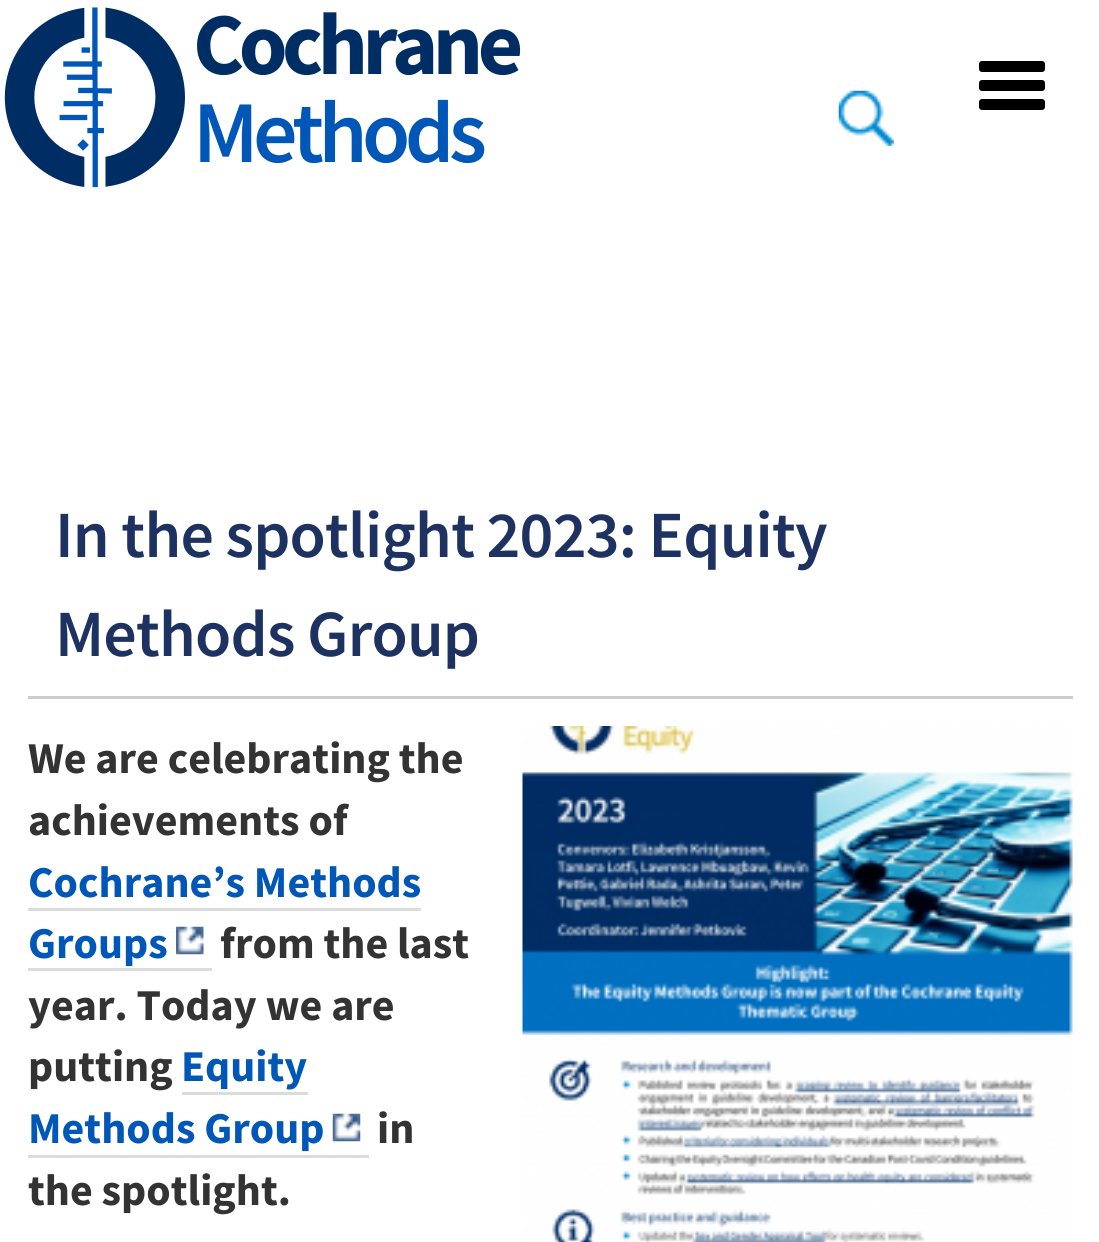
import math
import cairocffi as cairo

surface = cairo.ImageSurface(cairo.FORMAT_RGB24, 1099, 1242)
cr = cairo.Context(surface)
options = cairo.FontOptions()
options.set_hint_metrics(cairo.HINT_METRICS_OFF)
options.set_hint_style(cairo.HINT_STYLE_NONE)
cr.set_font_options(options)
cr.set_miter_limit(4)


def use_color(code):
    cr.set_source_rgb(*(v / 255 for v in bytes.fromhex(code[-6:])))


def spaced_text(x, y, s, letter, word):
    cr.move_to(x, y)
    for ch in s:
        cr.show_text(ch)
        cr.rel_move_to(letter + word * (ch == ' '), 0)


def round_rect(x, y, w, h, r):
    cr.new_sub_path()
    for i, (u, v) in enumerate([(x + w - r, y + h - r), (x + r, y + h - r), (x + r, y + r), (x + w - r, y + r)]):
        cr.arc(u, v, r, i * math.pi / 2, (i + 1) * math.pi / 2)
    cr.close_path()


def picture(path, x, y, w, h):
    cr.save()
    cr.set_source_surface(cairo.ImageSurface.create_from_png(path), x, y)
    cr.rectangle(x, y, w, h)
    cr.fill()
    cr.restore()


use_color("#ffffff")
cr.paint()
picture("img1.png", 4, 7, 181, 181)
cr.select_font_face("Source Sans Pro", cairo.FONT_SLANT_NORMAL, cairo.FONT_WEIGHT_BOLD)
cr.set_font_size(88)
use_color("#002d64")
spaced_text(193, 74, "Cochrane", -5.5, 0)
cr.select_font_face("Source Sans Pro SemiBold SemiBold")
use_color("#0057b7")
spaced_text(193, 162, "Methods", -5.5, 0)
picture("img2.png", 838, 90, 56, 56)
use_color("#000000")
round_rect(979, 61, 66, 11, 3)
cr.fill()
round_rect(979, 80, 66, 11, 3)
cr.fill()
round_rect(979, 99, 66, 11, 3)
cr.fill()
cr.set_font_size(66)
use_color("#1e3262")
spaced_text(55, 557, "In the spotlight 2023: Equity", -0.8, 0)
spaced_text(55, 656, "Methods Group", -0.8, 0)
use_color("#cccccc")
cr.rectangle(28, 696, 1045, 3)
cr.fill()
cr.select_font_face("Source Sans Pro", cairo.FONT_SLANT_NORMAL, cairo.FONT_WEIGHT_BOLD)
cr.set_font_size(44)
use_color("#333333")
cr.move_to(28, 773)
cr.show_text("We are celebrating the")
cr.move_to(28, 835)
cr.show_text("achievements of")
use_color("#0057b7")
cr.move_to(28, 897)
cr.show_text("Cochrane’s Methods")
use_color("#dcdcdc")
cr.rectangle(28, 908, 393, 3)
cr.fill()
use_color("#0057b7")
cr.move_to(28, 958)
cr.show_text("Groups")
use_color("#dcdcdc")
cr.rectangle(28, 968, 184, 3)
cr.fill()
picture("img3.png", 176, 926, 28, 29)
use_color("#333333")
cr.move_to(220, 958)
cr.show_text("from the last")
cr.move_to(28, 1020)
cr.show_text("year. Today we are")
cr.move_to(28, 1081)
cr.show_text("putting")
use_color("#0057b7")
cr.move_to(181, 1081)
cr.show_text("Equity")
use_color("#dcdcdc")
cr.rectangle(182, 1092, 126, 3)
cr.fill()
use_color("#0057b7")
cr.move_to(28, 1143)
cr.show_text("Methods Group")
use_color("#dcdcdc")
cr.rectangle(28, 1155, 341, 3)
cr.fill()
picture("img4.png", 332, 1113, 29, 29)
use_color("#333333")
cr.move_to(377, 1143)
cr.show_text("in")
cr.move_to(28, 1205)
cr.show_text("the spotlight.")
picture("img5.png", 522, 726, 551, 516)
surface.write_to_png("result.png")
